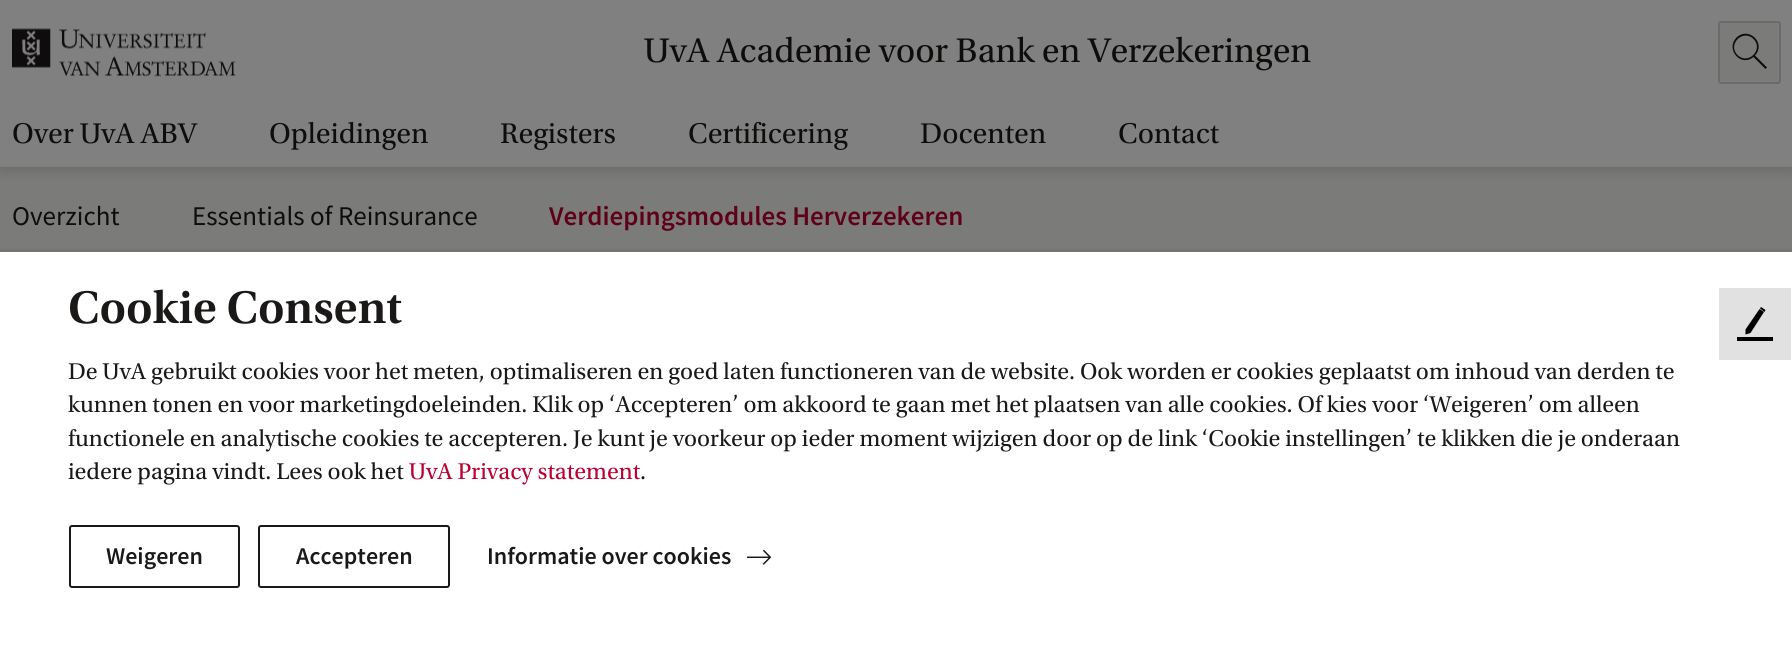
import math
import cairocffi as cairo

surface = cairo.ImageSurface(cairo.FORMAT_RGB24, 1792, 648)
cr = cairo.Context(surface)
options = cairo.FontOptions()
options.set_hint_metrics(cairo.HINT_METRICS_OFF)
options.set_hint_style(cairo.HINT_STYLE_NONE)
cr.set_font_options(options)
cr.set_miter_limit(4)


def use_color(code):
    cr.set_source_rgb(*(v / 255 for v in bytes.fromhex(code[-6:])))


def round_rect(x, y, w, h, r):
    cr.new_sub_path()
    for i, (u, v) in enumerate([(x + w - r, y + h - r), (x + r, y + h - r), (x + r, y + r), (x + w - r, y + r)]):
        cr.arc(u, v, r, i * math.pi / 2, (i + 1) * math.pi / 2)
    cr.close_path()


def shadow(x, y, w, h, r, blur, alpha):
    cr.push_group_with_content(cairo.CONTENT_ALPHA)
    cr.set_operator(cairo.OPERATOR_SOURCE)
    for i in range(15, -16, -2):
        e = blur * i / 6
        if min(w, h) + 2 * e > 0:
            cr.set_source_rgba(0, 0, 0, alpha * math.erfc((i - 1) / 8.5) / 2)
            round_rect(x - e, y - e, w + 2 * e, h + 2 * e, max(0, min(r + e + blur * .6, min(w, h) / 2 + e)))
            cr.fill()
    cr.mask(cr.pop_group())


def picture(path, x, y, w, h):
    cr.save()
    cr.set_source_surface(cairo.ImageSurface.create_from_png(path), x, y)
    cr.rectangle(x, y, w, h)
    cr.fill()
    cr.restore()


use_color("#7b7b7a")
cr.paint()
use_color("#000000")
shadow(0, 108, 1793, 62, 0, 7.5, 0.15)
use_color("#808080")
cr.rectangle(0, 0, 1792, 167)
cr.fill()
picture("img1.png", 12, 28, 224, 49)
cr.select_font_face("Utopia")
cr.set_font_size(36)
use_color("#0e0d0c")
cr.move_to(644, 62)
cr.show_text("UvA Academie voor Bank en Verzekeringen")
use_color("#7b7b7a")
round_rect(1719, 22, 61, 61, 2)
cr.fill_preserve()
use_color("#6c6b6a")
cr.stroke()
use_color("#0e0d0c")
cr.new_path()
cr.move_to(1753.5, 57)
cr.curve_to(1741, 67.5, 1725, 49.5, 1736.5, 37.5)
cr.curve_to(1748.5, 26, 1766.5, 43, 1755, 55.5)
cr.line_to(1767, 67.5)
cr.line_to(1765.5, 69)
cr.close_path()
cr.move_to(1737.5, 55)
cr.curve_to(1748, 65.5, 1764, 49.5, 1753.5, 39)
cr.curve_to(1743, 28.5, 1727, 44.5, 1737.5, 55)
cr.close_path()
cr.fill()
cr.set_font_size(30)
cr.move_to(12, 143)
cr.show_text("Over UvA ABV")
cr.move_to(269, 143)
cr.show_text("Opleidingen")
cr.move_to(500, 143)
cr.show_text("Registers")
cr.move_to(688, 143)
cr.show_text("Certificering")
cr.move_to(920, 143)
cr.show_text("Docenten")
cr.move_to(1118, 143)
cr.show_text("Contact")
cr.select_font_face("Source Sans Pro")
cr.set_font_size(27)
cr.move_to(12, 225)
cr.show_text("Overzicht")
cr.move_to(192, 225)
cr.show_text("Essentials of Reinsurance")
cr.select_font_face("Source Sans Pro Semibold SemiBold")
use_color("#5f0019")
cr.move_to(549, 225)
cr.show_text("Verdiepingsmodules Herverzekeren")
use_color("#000000")
shadow(0, 257, 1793, 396, 0, 4.5, 0.2)
shadow(0, 254, 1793, 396, 0, 4.5, 0.15)
use_color("#ffffff")
cr.rectangle(0, 252, 1792, 396)
cr.fill()
cr.select_font_face("Utopia SemiBold")
cr.set_font_size(48)
use_color("#1b1918")
cr.move_to(68, 323)
cr.show_text("Cookie Consent")
cr.select_font_face("Utopia")
cr.set_font_size(24)
cr.move_to(68, 379)
cr.show_text("De UvA gebruikt cookies voor het meten, optimaliseren en goed laten functioneren van de website. Ook worden er cookies geplaatst om inhoud van derden te")
cr.move_to(68, 412)
cr.show_text("kunnen tonen en voor marketingdoeleinden. Klik op ‘Accepteren’ om akkoord te gaan met het plaatsen van alle cookies. Of kies voor ‘Weigeren’ om alleen")
cr.move_to(68, 446)
cr.show_text("functionele en analytische cookies te accepteren. Je kunt je voorkeur op ieder moment wijzigen door op de link ‘Cookie instellingen’ te klikken die je onderaan")
cr.move_to(68, 479)
cr.show_text("iedere pagina vindt. Lees ook het")
use_color("#bd0032")
cr.move_to(409, 479)
cr.show_text("UvA Privacy statement")
use_color("#1b1918")
cr.move_to(640, 479)
cr.show_text(".")
round_rect(70, 526, 169, 61, 2)
cr.stroke()
cr.select_font_face("Source Sans Pro Semibold SemiBold")
cr.move_to(106, 564)
cr.show_text("Weigeren")
round_rect(259, 526, 190, 61, 2)
cr.stroke()
cr.move_to(296, 564)
cr.show_text("Accepteren")
cr.move_to(487, 564)
cr.show_text("Informatie over cookies")
picture("img2.png", 747, 549, 25, 16)
use_color("#e1e1e1")
cr.rectangle(1719, 288, 72, 72)
cr.fill()
use_color("#000000")
cr.new_path()
cr.move_to(1764, 312)
cr.line_to(1750.5, 333)
cr.line_to(1745.5, 334.5)
cr.line_to(1745.5, 329.5)
cr.line_to(1759.5, 309)
cr.close_path()
cr.fill()
cr.new_path()
cr.move_to(1760, 308.5)
cr.line_to(1761, 307)
cr.line_to(1765.5, 310)
cr.line_to(1764.5, 312)
cr.close_path()
cr.fill()
cr.rectangle(1737, 337, 36, 4)
cr.fill()
surface.write_to_png("result.png")
